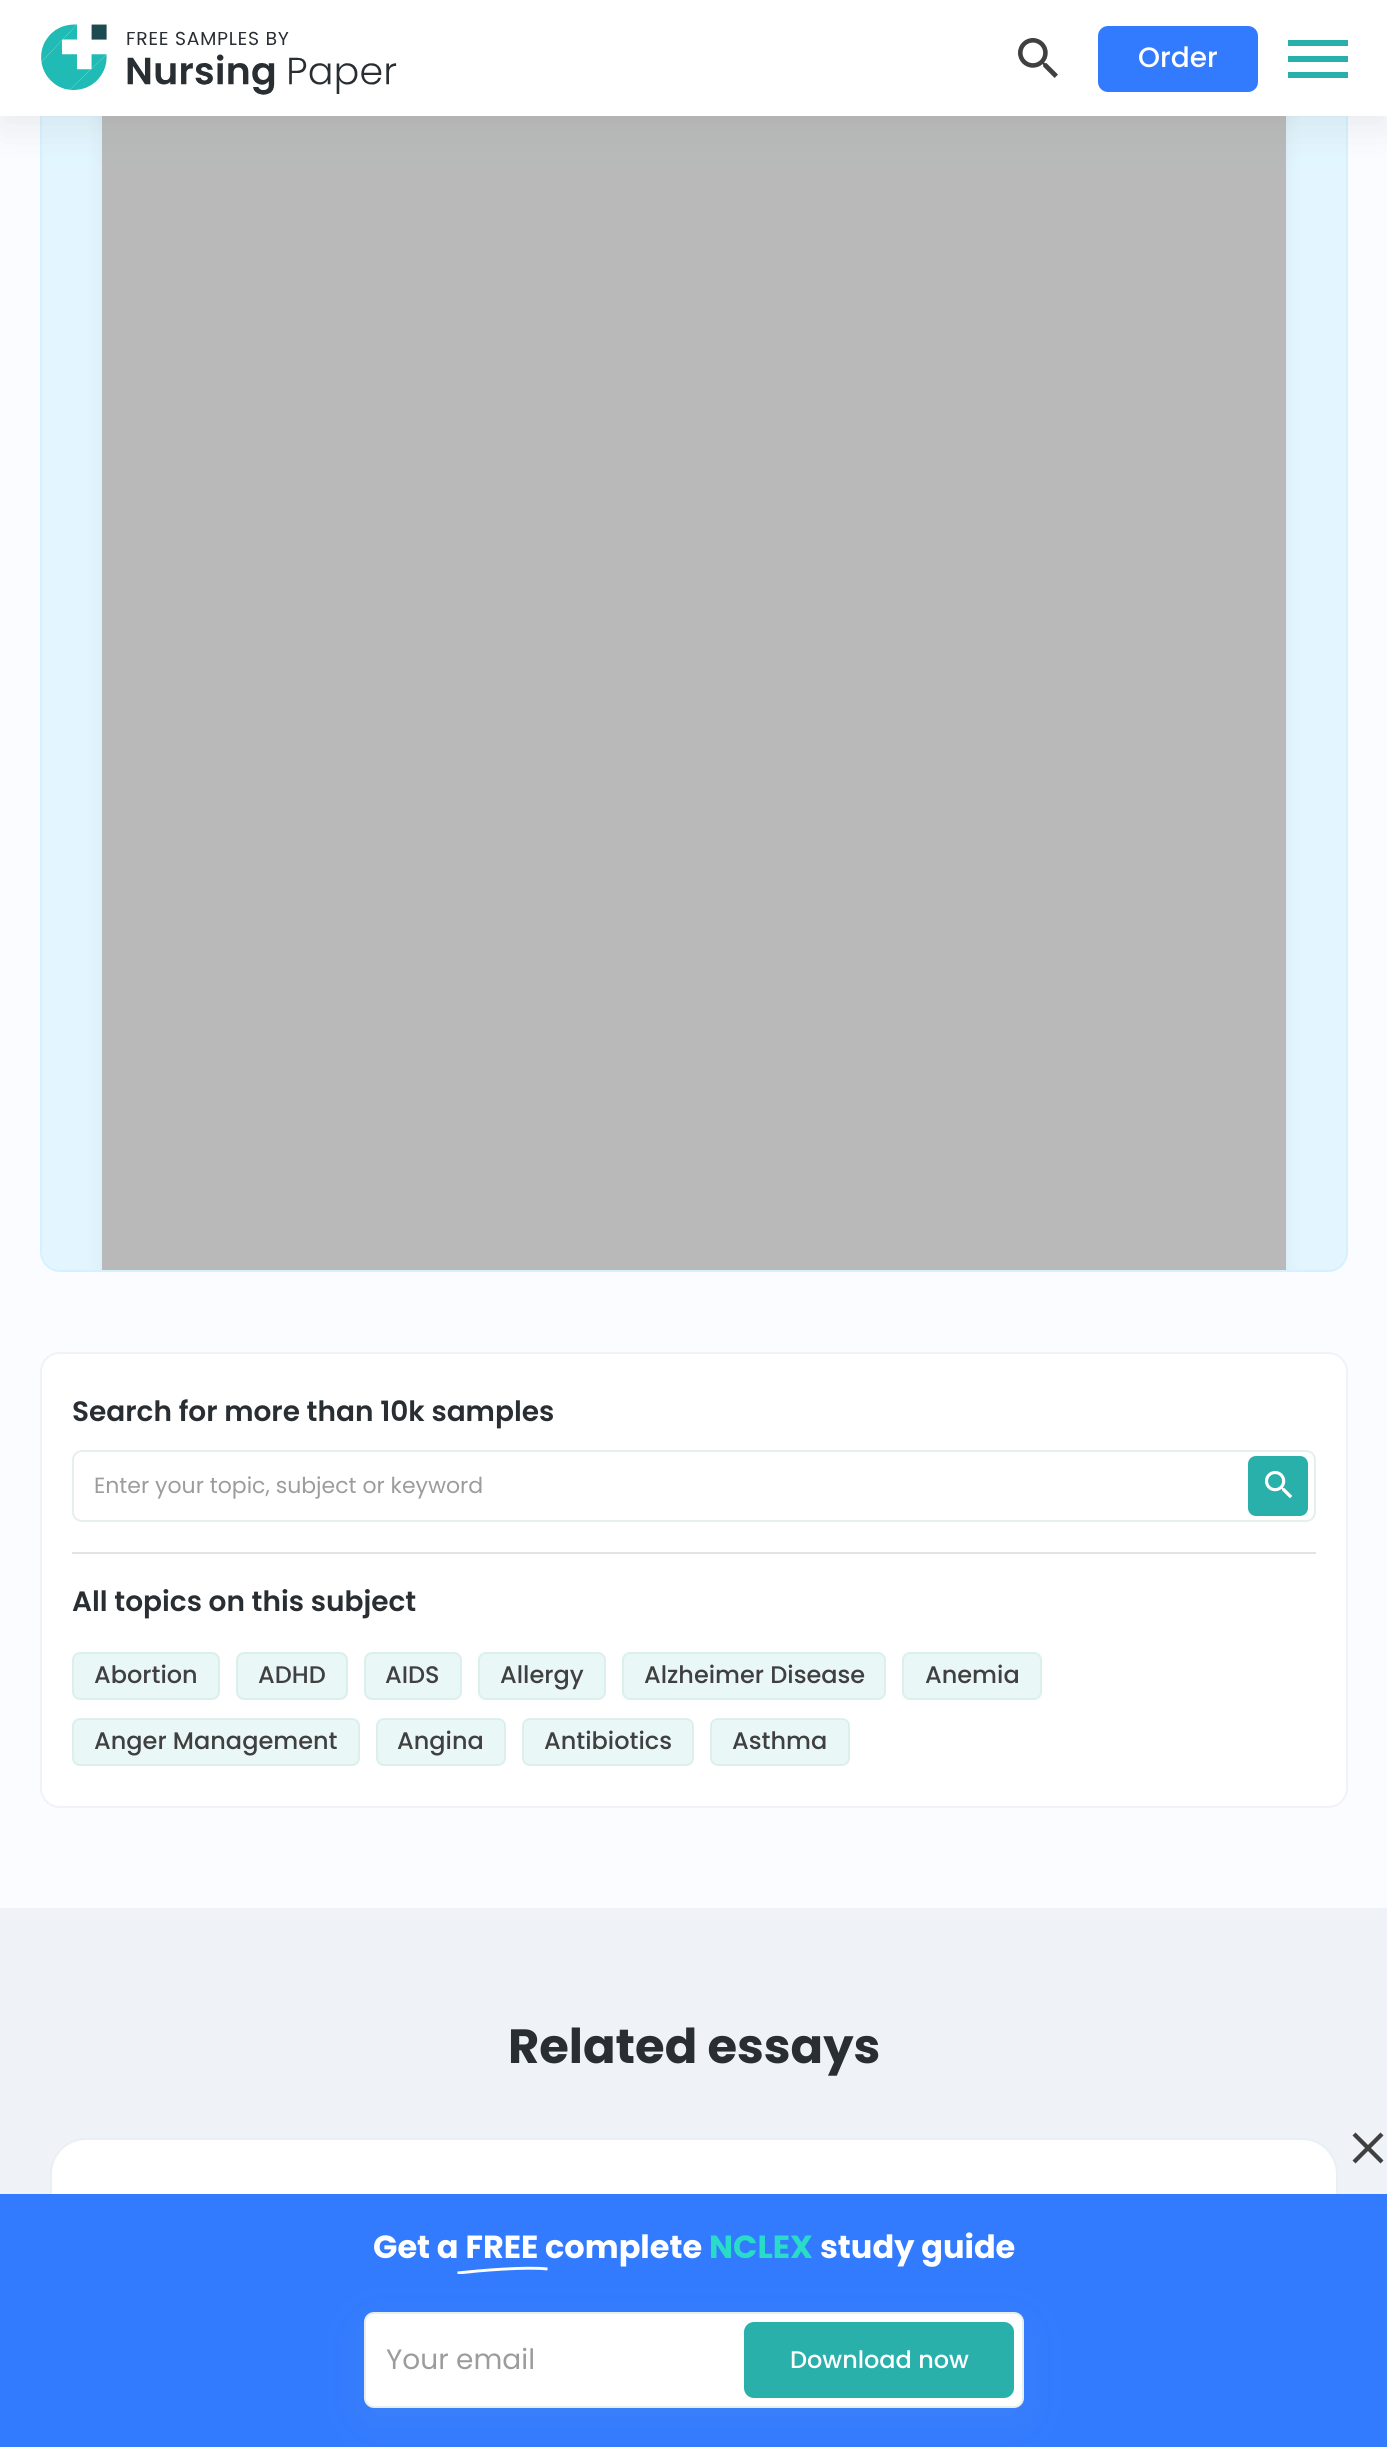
import math
import cairocffi as cairo

surface = cairo.ImageSurface(cairo.FORMAT_RGB24, 1387, 2447)
cr = cairo.Context(surface)
options = cairo.FontOptions()
options.set_hint_metrics(cairo.HINT_METRICS_OFF)
options.set_hint_style(cairo.HINT_STYLE_NONE)
cr.set_font_options(options)
cr.set_miter_limit(4)


def use_color(code):
    cr.set_source_rgb(*(v / 255 for v in bytes.fromhex(code[-6:])))


def round_rect(x, y, w, h, r):
    cr.new_sub_path()
    for i, (u, v) in enumerate([(x + w - r, y + h - r), (x + r, y + h - r), (x + r, y + r), (x + w - r, y + r)]):
        cr.arc(u, v, r, i * math.pi / 2, (i + 1) * math.pi / 2)
    cr.close_path()


def shadow(x, y, w, h, r, blur, alpha):
    cr.push_group_with_content(cairo.CONTENT_ALPHA)
    cr.set_operator(cairo.OPERATOR_SOURCE)
    for i in range(15, -16, -2):
        e = blur * i / 6
        if min(w, h) + 2 * e > 0:
            cr.set_source_rgba(0, 0, 0, alpha * math.erfc((i - 1) / 8.5) / 2)
            round_rect(x - e, y - e, w + 2 * e, h + 2 * e, max(0, min(r + e + blur * .6, min(w, h) / 2 + e)))
            cr.fill()
    cr.mask(cr.pop_group())


def picture(path, x, y, w, h):
    cr.save()
    cr.set_source_surface(cairo.ImageSurface.create_from_png(path), x, y)
    cr.rectangle(x, y, w, h)
    cr.fill()
    cr.restore()


use_color("#fbfcff")
cr.paint()
use_color("#e3f6ff")
round_rect(41, -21, 1306, 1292, 19)
cr.fill_preserve()
use_color("#d5f1ff")
cr.stroke()
cr.save()
round_rect(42, -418, 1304, 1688, 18)
cr.clip()
use_color("#000000")
shadow(102, 96, 1184, 1184, 4, 10, 0.06)
cr.restore()
use_color("#b9b9b9")
cr.rectangle(102, 116, 1184, 1154)
cr.fill()
use_color("#7d8487")
shadow(0, 12, 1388, 116, 0, 20, 0.14)
use_color("#ffffff")
cr.rectangle(0, 0, 1387, 116)
cr.fill()
picture("img1.png", 41, 24, 356, 71)
picture("img2.png", 1018, 38, 40, 40)
use_color("#327bff")
round_rect(1098, 26, 160, 66, 10)
cr.fill()
cr.select_font_face("Poppins Medium")
cr.set_font_size(28)
use_color("#ffffff")
cr.move_to(1138, 67)
cr.show_text("Order")
use_color("#2ab0ab")
cr.rectangle(1288, 40, 60, 6)
cr.fill()
cr.rectangle(1288, 56, 60, 6)
cr.fill()
cr.rectangle(1288, 72, 60, 6)
cr.fill()
use_color("#ffffff")
round_rect(41, 1353, 1306, 454, 19)
cr.fill_preserve()
use_color("#f0f2f8")
cr.stroke()
cr.select_font_face("Poppins SemiBold")
use_color("#292e33")
cr.move_to(72, 1421)
cr.show_text("Search for more than 10k samples")
round_rect(73, 1451, 1242, 70, 9)
use_color("#e5efed")
cr.stroke()
cr.select_font_face("Poppins")
cr.set_font_size(22)
use_color("#9c9c9c")
cr.move_to(94, 1493)
cr.show_text("Enter your topic, subject or keyword")
use_color("#2ab0ab")
round_rect(1248, 1456, 60, 60, 8)
cr.fill()
picture("img3.png", 1264, 1470, 29, 29)
use_color("#e3e3e3")
cr.rectangle(72, 1552, 1244, 2)
cr.fill()
cr.select_font_face("Poppins SemiBold")
cr.set_font_size(28)
use_color("#292e33")
cr.move_to(72, 1611)
cr.show_text("All topics on this subject")
use_color("#eaf7f7")
round_rect(73, 1653, 146, 46, 7)
cr.fill_preserve()
use_color("#dbf0ec")
cr.stroke()
cr.select_font_face("Poppins Medium")
cr.set_font_size(24)
use_color("#404040")
cr.move_to(94, 1683)
cr.show_text("Abortion")
use_color("#eaf7f7")
round_rect(237, 1653, 110, 46, 7)
cr.fill_preserve()
use_color("#dbf0ec")
cr.stroke()
use_color("#404040")
cr.move_to(258, 1683)
cr.show_text("ADHD")
use_color("#eaf7f7")
round_rect(365, 1653, 96, 46, 7)
cr.fill_preserve()
use_color("#dbf0ec")
cr.stroke()
use_color("#404040")
cr.move_to(385, 1683)
cr.show_text("AIDS")
use_color("#eaf7f7")
round_rect(479, 1653, 126, 46, 7)
cr.fill_preserve()
use_color("#dbf0ec")
cr.stroke()
use_color("#404040")
cr.move_to(500, 1683)
cr.show_text("Allergy")
use_color("#eaf7f7")
round_rect(623, 1653, 262, 46, 7)
cr.fill_preserve()
use_color("#dbf0ec")
cr.stroke()
use_color("#404040")
cr.move_to(644, 1683)
cr.show_text("Alzheimer Disease")
use_color("#eaf7f7")
round_rect(903, 1653, 138, 46, 7)
cr.fill_preserve()
use_color("#dbf0ec")
cr.stroke()
use_color("#404040")
cr.move_to(925, 1683)
cr.show_text("Anemia")
use_color("#eaf7f7")
round_rect(73, 1719, 286, 46, 7)
cr.fill_preserve()
use_color("#dbf0ec")
cr.stroke()
use_color("#404040")
cr.move_to(94, 1749)
cr.show_text("Anger Management")
use_color("#eaf7f7")
round_rect(377, 1719, 128, 46, 7)
cr.fill_preserve()
use_color("#dbf0ec")
cr.stroke()
use_color("#404040")
cr.move_to(397, 1749)
cr.show_text("Angina")
use_color("#eaf7f7")
round_rect(523, 1719, 170, 46, 7)
cr.fill_preserve()
use_color("#dbf0ec")
cr.stroke()
use_color("#404040")
cr.move_to(544, 1749)
cr.show_text("Antibiotics")
use_color("#eaf7f7")
round_rect(711, 1719, 138, 46, 7)
cr.fill_preserve()
use_color("#dbf0ec")
cr.stroke()
use_color("#404040")
cr.move_to(732, 1749)
cr.show_text("Asthma")
use_color("#eff2f7")
cr.rectangle(0, 1908, 1387, 286)
cr.fill()
cr.select_font_face("Poppins", cairo.FONT_SLANT_NORMAL, cairo.FONT_WEIGHT_BOLD)
cr.set_font_size(48)
use_color("#292e33")
cr.move_to(508, 2063)
cr.show_text("Related essays")
use_color("#ffffff")
round_rect(51, 2139, 1286, 252, 35)
cr.fill_preserve()
use_color("#e8f0f3")
cr.stroke()
use_color("#327bff")
cr.rectangle(0, 2194, 1387, 253)
cr.fill()
use_color("#404040")
cr.new_path()
cr.move_to(1355.5, 2132.5)
cr.line_to(1383.5, 2160.5)
cr.line_to(1380.5, 2163.5)
cr.line_to(1352.5, 2135.5)
cr.close_path()
cr.fill()
cr.new_path()
cr.move_to(1352.5, 2160.5)
cr.line_to(1380.5, 2132.5)
cr.line_to(1383.5, 2135.5)
cr.line_to(1355.5, 2163.5)
cr.close_path()
cr.fill()
cr.set_font_size(32)
use_color("#ffffff")
cr.move_to(373, 2258)
cr.show_text("Get a FREE")
cr.move_to(545, 2258)
cr.show_text("complete")
use_color("#28dcc7")
cr.move_to(709, 2258)
cr.show_text("NCLEX")
use_color("#ffffff")
cr.move_to(820, 2258)
cr.show_text("study guide")
cr.save()
cr.rectangle(456, 2266, 92, 8)
cr.clip()
cr.new_path()
cr.move_to(457.5, 2273)
cr.curve_to(479, 2270.5, 527.5, 2266.5, 547.5, 2269)
cr.set_line_width(2.9)
cr.stroke()
cr.restore()
use_color("#9ba8ae")
shadow(364, 2324, 660, 96, 10, 20, 0.1)
use_color("#ffffff")
round_rect(365, 2313, 658, 94, 9)
cr.fill_preserve()
use_color("#e5efed")
cr.stroke()
cr.select_font_face("Poppins")
cr.set_font_size(28)
use_color("#9c9c9c")
cr.move_to(386, 2369)
cr.show_text("Your email")
use_color("#2ab0ab")
round_rect(745, 2323, 268, 74, 9)
cr.fill_preserve()
cr.stroke()
cr.select_font_face("Poppins Medium")
cr.set_font_size(24)
use_color("#ffffff")
cr.move_to(790, 2368)
cr.show_text("Download now")
surface.write_to_png("result.png")
